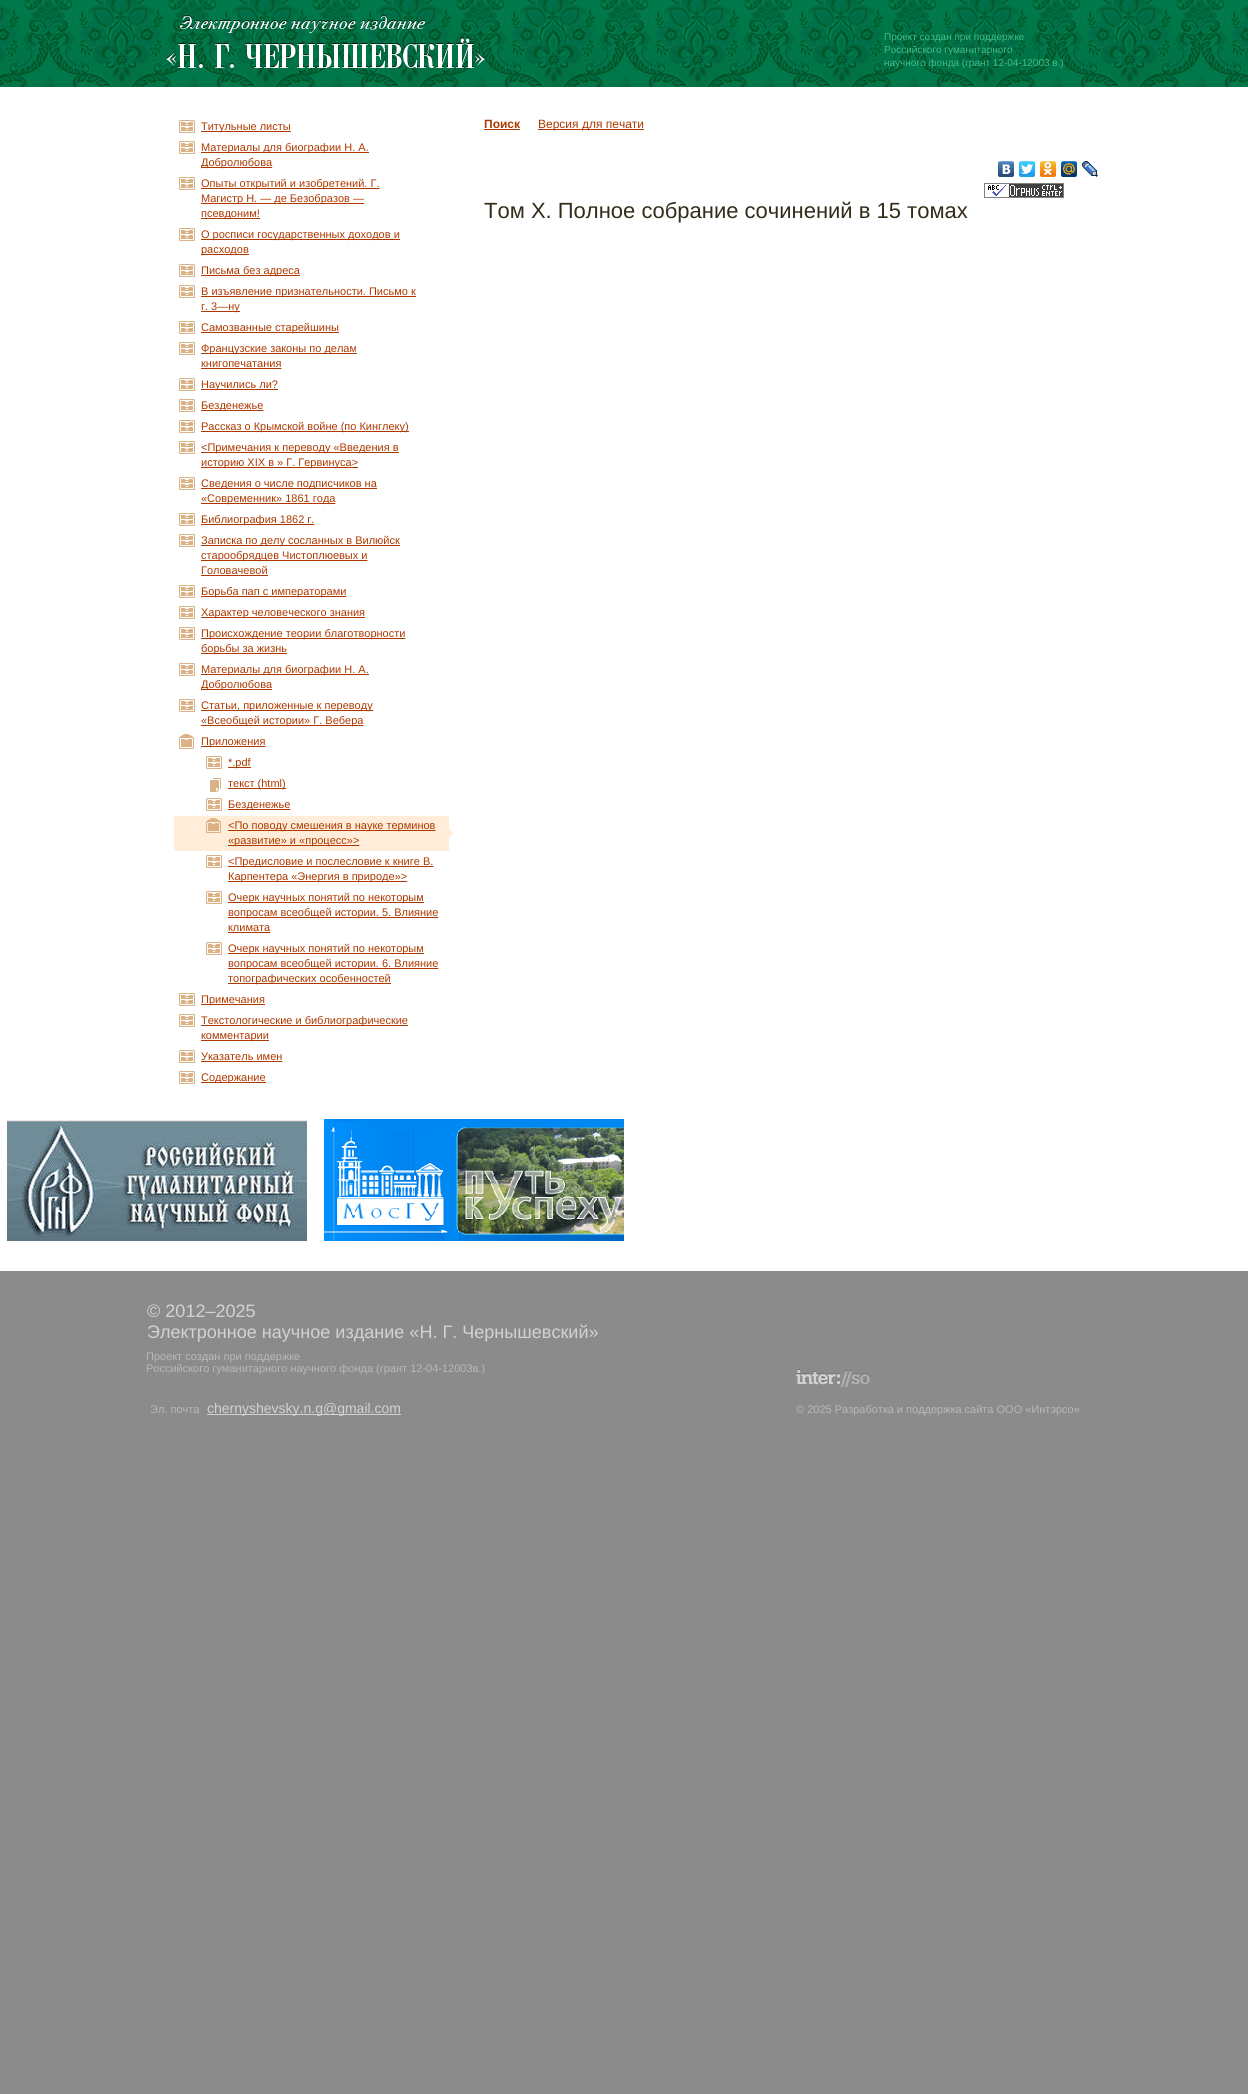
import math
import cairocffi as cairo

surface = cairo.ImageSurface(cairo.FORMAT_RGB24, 1248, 2094)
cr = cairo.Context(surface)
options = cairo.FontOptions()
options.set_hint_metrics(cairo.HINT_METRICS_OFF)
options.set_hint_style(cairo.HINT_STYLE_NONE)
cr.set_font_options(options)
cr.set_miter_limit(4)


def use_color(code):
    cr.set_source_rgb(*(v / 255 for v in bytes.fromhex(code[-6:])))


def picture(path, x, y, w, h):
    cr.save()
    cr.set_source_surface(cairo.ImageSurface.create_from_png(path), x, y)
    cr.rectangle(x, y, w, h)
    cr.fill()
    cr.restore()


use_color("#8b8b8b")
cr.paint()
picture("img1.png", 0, 0, 1248, 87)
picture("img2.png", 166, 15, 319, 53)
cr.select_font_face("Liberation Sans")
cr.set_font_size(10)
use_color("#40bd8a")
cr.move_to(884, 40)
cr.show_text("Проект создан при поддержке")
cr.move_to(884, 53)
cr.show_text("Российского гуманитарного")
cr.move_to(884, 66)
cr.show_text("научного фонда (грант 12-04-12003 в.)")
use_color("#ffffff")
cr.rectangle(0, 87, 1248, 1184)
cr.fill()
picture("img3.png", 179, 120, 16, 13)
use_color("#ad3900")
cr.rectangle(201, 131, 90, 1)
cr.fill()
cr.set_font_size(11)
cr.move_to(201, 130)
cr.show_text("Титульные листы")
picture("img4.png", 179, 141, 94, 27)
cr.rectangle(227, 152, 142, 1)
cr.fill()
cr.move_to(201, 151)
cr.show_text("Материалы для биографии Н. А.")
cr.rectangle(201, 167, 23, 1)
cr.fill()
cr.move_to(201, 166)
cr.show_text("Добролюбова")
picture("img5.png", 179, 177, 201, 13)
cr.rectangle(255, 188, 70, 1)
cr.fill()
cr.move_to(201, 187)
cr.show_text("Опыты открытий и изобретений. Г.")
cr.rectangle(201, 203, 163, 1)
cr.fill()
cr.move_to(201, 202)
cr.show_text("Магистр Н. — де Безобразов —")
cr.rectangle(201, 218, 59, 1)
cr.fill()
cr.move_to(201, 217)
cr.show_text("псевдоним!")
picture("img3.png", 179, 228, 16, 13)
cr.rectangle(201, 239, 199, 1)
cr.fill()
cr.move_to(201, 238)
cr.show_text("О росписи государственных доходов и")
cr.rectangle(201, 254, 48, 1)
cr.fill()
cr.move_to(201, 253)
cr.show_text("расходов")
picture("img3.png", 179, 264, 16, 13)
cr.rectangle(201, 275, 99, 1)
cr.fill()
cr.move_to(201, 274)
cr.show_text("Письма без адреса")
picture("img3.png", 179, 285, 16, 13)
cr.rectangle(201, 296, 215, 1)
cr.fill()
cr.move_to(201, 295)
cr.show_text("В изъявление признательности. Письмо к")
cr.rectangle(201, 311, 39, 1)
cr.fill()
cr.move_to(201, 310)
cr.show_text("г. 3—ну")
picture("img3.png", 179, 321, 16, 13)
cr.rectangle(201, 332, 138, 1)
cr.fill()
cr.move_to(201, 331)
cr.show_text("Самозванные старейшины")
picture("img6.png", 179, 342, 179, 27)
cr.rectangle(201, 353, 131, 1)
cr.fill()
cr.move_to(201, 352)
cr.show_text("Французские законы по делам")
cr.move_to(201, 367)
cr.show_text("книгопечатания")
picture("img3.png", 179, 378, 16, 13)
cr.rectangle(201, 389, 77, 1)
cr.fill()
cr.move_to(201, 388)
cr.show_text("Научились ли?")
picture("img7.png", 179, 399, 85, 13)
cr.rectangle(218, 410, 9, 1)
cr.fill()
cr.move_to(201, 409)
cr.show_text("Безденежье")
picture("img3.png", 179, 420, 16, 13)
cr.rectangle(201, 431, 208, 1)
cr.fill()
cr.move_to(201, 430)
cr.show_text("Рассказ о Крымской войне (по Кинглеку)")
picture("img8.png", 179, 441, 180, 27)
cr.rectangle(215, 452, 184, 1)
cr.fill()
cr.move_to(201, 451)
cr.show_text("<Примечания к переводу «Введения в")
cr.rectangle(223, 467, 115, 1)
cr.fill()
cr.move_to(201, 466)
cr.show_text("историю XIX в » Г. Гервинуса>")
picture("img9.png", 179, 477, 157, 27)
cr.rectangle(220, 488, 157, 1)
cr.fill()
cr.move_to(201, 487)
cr.show_text("Сведения о числе подписчиков на")
cr.rectangle(227, 503, 108, 1)
cr.fill()
cr.move_to(201, 502)
cr.show_text("«Современник» 1861 года")
picture("img10.png", 179, 513, 136, 13)
cr.rectangle(243, 524, 19, 1)
cr.fill()
cr.move_to(201, 523)
cr.show_text("Библиография 1862 г.")
picture("img11.png", 179, 534, 189, 27)
cr.rectangle(259, 545, 141, 1)
cr.fill()
cr.move_to(201, 544)
cr.show_text("Записка по делу сосланных в Вилюйск")
cr.rectangle(217, 560, 51, 1)
cr.fill()
cr.move_to(201, 559)
cr.show_text("старообрядцев Чистоплюевых и")
cr.move_to(201, 574)
cr.show_text("Головачевой")
cr.rectangle(201, 575, 67, 1)
cr.fill()
picture("img12.png", 179, 585, 168, 13)
cr.rectangle(214, 596, 109, 1)
cr.fill()
cr.move_to(201, 595)
cr.show_text("Борьба пап с императорами")
picture("img13.png", 179, 606, 187, 13)
cr.rectangle(214, 617, 31, 1)
cr.fill()
cr.move_to(201, 616)
cr.show_text("Характер человеческого знания")
picture("img14.png", 179, 627, 227, 27)
cr.rectangle(201, 638, 172, 1)
cr.fill()
cr.move_to(201, 637)
cr.show_text("Происхождение теории благотворности")
cr.rectangle(213, 653, 3, 1)
cr.fill()
cr.move_to(201, 652)
cr.show_text("борьбы за жизнь")
picture("img4.png", 179, 663, 94, 27)
cr.rectangle(227, 674, 142, 1)
cr.fill()
cr.move_to(201, 673)
cr.show_text("Материалы для биографии Н. А.")
cr.rectangle(201, 689, 23, 1)
cr.fill()
cr.move_to(201, 688)
cr.show_text("Добролюбова")
picture("img15.png", 179, 699, 185, 27)
cr.rectangle(249, 710, 124, 1)
cr.fill()
cr.move_to(201, 709)
cr.show_text("Статьи, приложенные к переводу")
cr.rectangle(245, 725, 109, 1)
cr.fill()
cr.move_to(201, 724)
cr.show_text("«Всеобщей истории» Г. Вебера")
picture("img16.png", 179, 734, 87, 15)
cr.rectangle(201, 746, 11, 1)
cr.fill()
cr.move_to(201, 745)
cr.show_text("Приложения")
picture("img3.png", 206, 756, 16, 13)
cr.rectangle(228, 767, 23, 1)
cr.fill()
cr.move_to(228, 766)
cr.show_text("*.pdf")
picture("img17.png", 210, 778, 11, 14)
cr.rectangle(228, 788, 58, 1)
cr.fill()
cr.move_to(228, 787)
cr.show_text("текст (html)")
picture("img7.png", 206, 798, 85, 13)
cr.rectangle(245, 809, 9, 1)
cr.fill()
cr.move_to(228, 808)
cr.show_text("Безденежье")
use_color("#ffedd9")
cr.rectangle(174, 816, 275, 35)
cr.fill()
picture("img18.png", 449, 816, 5, 35)
picture("img19.png", 206, 818, 230, 28)
use_color("#ad3900")
cr.rectangle(275, 830, 125, 1)
cr.fill()
cr.move_to(228, 829)
cr.show_text("<По поводу смешения в науке терминов")
cr.rectangle(228, 845, 103, 1)
cr.fill()
cr.move_to(228, 844)
cr.show_text("«развитие» и «процесс»>")
picture("img20.png", 206, 855, 228, 27)
cr.rectangle(242, 866, 20, 1)
cr.fill()
cr.move_to(228, 865)
cr.show_text("<Предисловие и послесловие к книге В.")
cr.rectangle(240, 881, 149, 1)
cr.fill()
cr.move_to(228, 880)
cr.show_text("Карпентера «Энергия в природе»>")
picture("img21.png", 206, 891, 233, 42)
cr.rectangle(248, 902, 176, 1)
cr.fill()
cr.move_to(228, 901)
cr.show_text("Очерк научных понятий по некоторым")
cr.rectangle(246, 917, 114, 1)
cr.fill()
cr.move_to(228, 916)
cr.show_text("вопросам всеобщей истории. 5. Влияние")
cr.move_to(228, 931)
cr.show_text("климата")
picture("img22.png", 206, 942, 233, 27)
cr.rectangle(248, 953, 176, 1)
cr.fill()
cr.move_to(228, 952)
cr.show_text("Очерк научных понятий по некоторым")
cr.rectangle(246, 968, 114, 1)
cr.fill()
cr.move_to(228, 967)
cr.show_text("вопросам всеобщей истории. 6. Влияние")
cr.rectangle(228, 983, 163, 1)
cr.fill()
cr.move_to(228, 982)
cr.show_text("топографических особенностей")
picture("img3.png", 179, 993, 16, 13)
cr.rectangle(201, 1004, 64, 1)
cr.fill()
cr.move_to(201, 1003)
cr.show_text("Примечания")
picture("img3.png", 179, 1014, 16, 13)
cr.rectangle(201, 1025, 207, 1)
cr.fill()
cr.move_to(201, 1024)
cr.show_text("Текстологические и библиографические")
cr.rectangle(201, 1040, 68, 1)
cr.fill()
cr.move_to(201, 1039)
cr.show_text("комментарии")
picture("img23.png", 179, 1050, 104, 13)
cr.move_to(201, 1060)
cr.show_text("Указатель имен")
picture("img3.png", 179, 1071, 16, 13)
cr.rectangle(201, 1082, 65, 1)
cr.fill()
cr.move_to(201, 1081)
cr.show_text("Содержание")
cr.select_font_face("Liberation Sans", cairo.FONT_SLANT_NORMAL, cairo.FONT_WEIGHT_BOLD)
cr.set_font_size(12)
cr.move_to(484, 128)
cr.show_text("Поиск")
cr.rectangle(484, 129, 36, 1)
cr.fill()
cr.rectangle(538, 129, 106, 1)
cr.fill()
cr.select_font_face("Liberation Sans")
cr.move_to(538, 128)
cr.show_text("Версия для печати")
picture("img24.png", 998, 161, 16, 16)
picture("img25.png", 1019, 161, 16, 16)
picture("img26.png", 1040, 161, 16, 16)
picture("img27.png", 1061, 161, 16, 16)
picture("img28.png", 1082, 161, 16, 16)
picture("img29.png", 984, 183, 80, 15)
cr.set_font_size(22)
use_color("#322c19")
cr.move_to(484, 218)
cr.show_text("Том X. Полное собрание сочинений в 15 томах")
picture("img30.png", 7, 1120, 300, 121)
picture("img31.png", 324, 1119, 300, 122)
cr.set_font_size(18.05)
use_color("#d2d2d2")
cr.move_to(147, 1317)
cr.show_text("© 2012–2025")
cr.move_to(147, 1338)
cr.show_text("Электронное научное издание «Н. Г. Чернышевский»")
cr.set_font_size(11)
use_color("#b8b8b8")
cr.move_to(146, 1360)
cr.show_text("Проект создан при поддержке")
cr.move_to(146, 1372)
cr.show_text("Российского гуманитарного научного фонда (грант 12-04-12003в.)")
cr.move_to(150, 1413)
cr.show_text("Эл. почта")
use_color("#d2d2d2")
cr.rectangle(207, 1414, 194, 1)
cr.fill()
cr.set_font_size(14)
cr.move_to(207, 1413)
cr.show_text("chernyshevsky.n.g@gmail.com")
picture("img32.png", 796, 1369, 74, 18)
cr.set_font_size(11)
use_color("#b8b8b8")
cr.move_to(796, 1413)
cr.show_text("© 2025 Разработка и поддержка сайта ООО «Интэрсо»")
surface.write_to_png("result.png")
